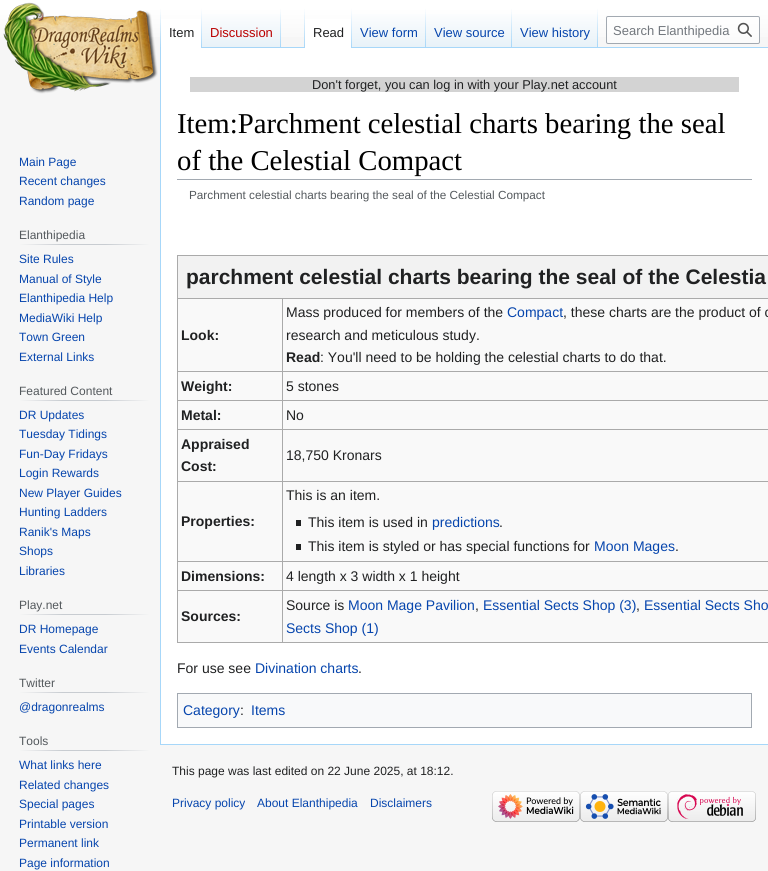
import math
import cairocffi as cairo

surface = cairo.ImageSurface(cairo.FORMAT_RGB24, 768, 871)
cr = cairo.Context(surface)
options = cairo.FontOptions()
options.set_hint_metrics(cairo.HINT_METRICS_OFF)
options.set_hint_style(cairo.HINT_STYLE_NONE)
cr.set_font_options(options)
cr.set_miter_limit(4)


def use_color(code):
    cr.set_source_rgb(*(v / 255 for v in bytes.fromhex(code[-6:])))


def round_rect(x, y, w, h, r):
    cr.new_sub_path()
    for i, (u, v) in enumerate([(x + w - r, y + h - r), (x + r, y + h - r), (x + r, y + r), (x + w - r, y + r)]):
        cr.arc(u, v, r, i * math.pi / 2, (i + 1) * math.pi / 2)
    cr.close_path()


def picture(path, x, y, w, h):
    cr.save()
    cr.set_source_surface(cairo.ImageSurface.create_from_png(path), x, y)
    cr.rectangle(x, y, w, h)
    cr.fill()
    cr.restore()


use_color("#f6f6f6")
cr.paint()
gradient = cairo.LinearGradient(384, -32, 384, 48)
gradient.add_color_stop_rgba(0.5, 1, 1, 1, 1)
gradient.add_color_stop_rgba(1, 0.965, 0.965, 0.965, 1)
cr.set_source(gradient)
cr.rectangle(0, 0, 768, 37)
cr.fill()
use_color("#a7d7f9")
cr.rectangle(160, 744, 608, 1)
cr.fill()
cr.rectangle(160, 47, 1, 698)
cr.fill()
gradient = cairo.LinearGradient(161, 8, 161, 48)
gradient.add_color_stop_rgba(0, 0.655, 0.843, 0.976, 0)
gradient.add_color_stop_rgba(1, 0.655, 0.843, 0.976, 1)
cr.set_source(gradient)
cr.rectangle(160, 8, 1, 40)
cr.fill()
use_color("#ffffff")
cr.rectangle(161, 19, 40, 29)
cr.fill()
gradient = cairo.LinearGradient(202, 8, 202, 48)
gradient.add_color_stop_rgba(0, 1, 1, 1, 1)
gradient.add_color_stop_rgba(1, 0.655, 0.843, 0.976, 1)
cr.set_source(gradient)
cr.rectangle(201, 8, 1, 40)
cr.fill()
cr.select_font_face("Liberation Sans")
cr.set_font_size(13)
use_color("#202122")
cr.move_to(169, 37)
cr.show_text("Item")
gradient = cairo.LinearGradient(242, 48, 242, 8)
gradient.add_color_stop_rgba(0, 0.467, 0.757, 0.965, 1)
gradient.add_color_stop_rgba(0.03, 0.91, 0.949, 0.973, 1)
gradient.add_color_stop_rgba(1, 1, 1, 1, 1)
cr.set_source(gradient)
cr.rectangle(202, 14, 79, 34)
cr.fill()
gradient = cairo.LinearGradient(281, 8, 281, 48)
gradient.add_color_stop_rgba(0, 0.655, 0.843, 0.976, 0)
gradient.add_color_stop_rgba(1, 0.655, 0.843, 0.976, 1)
cr.set_source(gradient)
cr.rectangle(280, 8, 1, 40)
cr.fill()
use_color("#ba0000")
cr.move_to(210, 37)
cr.show_text("Discussion")
use_color("#a7d7f9")
cr.rectangle(281, 47, 487, 1)
cr.fill()
gradient = cairo.LinearGradient(305, 8, 305, 48)
gradient.add_color_stop_rgba(0, 0.655, 0.843, 0.976, 0)
gradient.add_color_stop_rgba(1, 0.655, 0.843, 0.976, 1)
cr.set_source(gradient)
cr.rectangle(304, 8, 1, 40)
cr.fill()
use_color("#ffffff")
cr.rectangle(305, 19, 46, 29)
cr.fill()
gradient = cairo.LinearGradient(352, 8, 352, 48)
gradient.add_color_stop_rgba(0, 1, 1, 1, 1)
gradient.add_color_stop_rgba(1, 0.655, 0.843, 0.976, 1)
cr.set_source(gradient)
cr.rectangle(351, 8, 1, 40)
cr.fill()
use_color("#202122")
cr.move_to(313, 37)
cr.show_text("Read")
gradient = cairo.LinearGradient(389, 48, 389, 8)
gradient.add_color_stop_rgba(0, 0.467, 0.757, 0.965, 1)
gradient.add_color_stop_rgba(0.03, 0.91, 0.949, 0.973, 1)
gradient.add_color_stop_rgba(1, 1, 1, 1, 1)
cr.set_source(gradient)
cr.rectangle(352, 14, 74, 33)
cr.fill()
gradient = cairo.LinearGradient(426, 8, 426, 48)
gradient.add_color_stop_rgba(0, 0.655, 0.843, 0.976, 0)
gradient.add_color_stop_rgba(1, 0.655, 0.843, 0.976, 1)
cr.set_source(gradient)
cr.rectangle(425, 8, 1, 40)
cr.fill()
use_color("#0645ad")
cr.move_to(360, 37)
cr.show_text("View form")
gradient = cairo.LinearGradient(469, 48, 469, 8)
gradient.add_color_stop_rgba(0, 0.467, 0.757, 0.965, 1)
gradient.add_color_stop_rgba(0.03, 0.91, 0.949, 0.973, 1)
gradient.add_color_stop_rgba(1, 1, 1, 1, 1)
cr.set_source(gradient)
cr.rectangle(426, 14, 86, 33)
cr.fill()
gradient = cairo.LinearGradient(512, 8, 512, 48)
gradient.add_color_stop_rgba(0, 0.655, 0.843, 0.976, 0)
gradient.add_color_stop_rgba(1, 0.655, 0.843, 0.976, 1)
cr.set_source(gradient)
cr.rectangle(511, 8, 1, 40)
cr.fill()
use_color("#0645ad")
cr.move_to(434, 37)
cr.show_text("View source")
gradient = cairo.LinearGradient(555, 48, 555, 8)
gradient.add_color_stop_rgba(0, 0.467, 0.757, 0.965, 1)
gradient.add_color_stop_rgba(0.03, 0.91, 0.949, 0.973, 1)
gradient.add_color_stop_rgba(1, 1, 1, 1, 1)
cr.set_source(gradient)
cr.rectangle(512, 14, 86, 33)
cr.fill()
gradient = cairo.LinearGradient(598, 8, 598, 48)
gradient.add_color_stop_rgba(0, 0.655, 0.843, 0.976, 0)
gradient.add_color_stop_rgba(1, 0.655, 0.843, 0.976, 1)
cr.set_source(gradient)
cr.rectangle(597, 8, 1, 40)
cr.fill()
use_color("#0645ad")
cr.move_to(520, 37)
cr.show_text("View history")
cr.set_source_rgba(1, 1, 1, 0.5)
round_rect(606.5, 16.5, 153, 27, 1.5)
cr.fill_preserve()
use_color("#a2a9b1")
cr.set_line_width(1)
cr.stroke()
use_color("#72777d")
cr.move_to(613, 35)
cr.show_text("Search Elanthipedia")
picture("img1.png", 737, 22, 15, 15)
picture("img2.png", 3, 2, 155, 92)
cr.set_font_size(12)
use_color("#0645ad")
cr.move_to(19, 166)
cr.show_text("Main Page")
cr.move_to(19, 185)
cr.show_text("Recent changes")
cr.move_to(19, 205)
cr.show_text("Random page")
gradient = cairo.LinearGradient(19, 245, 150, 245)
gradient.add_color_stop_rgba(0, 0.965, 0.965, 0.965, 1)
gradient.add_color_stop_rgba(0.33, 0.784, 0.8, 0.82, 1)
gradient.add_color_stop_rgba(0.66, 0.784, 0.8, 0.82, 1)
gradient.add_color_stop_rgba(1, 0.965, 0.965, 0.965, 1)
cr.set_source(gradient)
cr.rectangle(19, 244, 131, 1)
cr.fill()
use_color("#54595d")
cr.move_to(19, 239)
cr.show_text("Elanthipedia")
use_color("#0645ad")
cr.move_to(19, 263)
cr.show_text("Site Rules")
cr.move_to(19, 283)
cr.show_text("Manual of Style")
cr.move_to(19, 302)
cr.show_text("Elanthipedia Help")
cr.move_to(19, 322)
cr.show_text("MediaWiki Help")
cr.move_to(19, 341)
cr.show_text("Town Green")
cr.move_to(19, 361)
cr.show_text("External Links")
gradient = cairo.LinearGradient(19, 401, 150, 401)
gradient.add_color_stop_rgba(0, 0.965, 0.965, 0.965, 1)
gradient.add_color_stop_rgba(0.33, 0.784, 0.8, 0.82, 1)
gradient.add_color_stop_rgba(0.66, 0.784, 0.8, 0.82, 1)
gradient.add_color_stop_rgba(1, 0.965, 0.965, 0.965, 1)
cr.set_source(gradient)
cr.rectangle(19, 400, 131, 1)
cr.fill()
use_color("#54595d")
cr.move_to(19, 395)
cr.show_text("Featured Content")
use_color("#0645ad")
cr.move_to(19, 419)
cr.show_text("DR Updates")
cr.move_to(19, 438)
cr.show_text("Tuesday Tidings")
cr.move_to(19, 458)
cr.show_text("Fun-Day Fridays")
cr.move_to(19, 477)
cr.show_text("Login Rewards")
cr.move_to(19, 497)
cr.show_text("New Player Guides")
cr.move_to(19, 516)
cr.show_text("Hunting Ladders")
cr.move_to(19, 536)
cr.show_text("Ranik's Maps")
cr.move_to(19, 555)
cr.show_text("Shops")
cr.move_to(19, 575)
cr.show_text("Libraries")
gradient = cairo.LinearGradient(19, 615, 150, 615)
gradient.add_color_stop_rgba(0, 0.965, 0.965, 0.965, 1)
gradient.add_color_stop_rgba(0.33, 0.784, 0.8, 0.82, 1)
gradient.add_color_stop_rgba(0.66, 0.784, 0.8, 0.82, 1)
gradient.add_color_stop_rgba(1, 0.965, 0.965, 0.965, 1)
cr.set_source(gradient)
cr.rectangle(19, 614, 131, 1)
cr.fill()
use_color("#54595d")
cr.move_to(19, 609)
cr.show_text("Play.net")
use_color("#0645ad")
cr.move_to(19, 633)
cr.show_text("DR Homepage")
cr.move_to(19, 653)
cr.show_text("Events Calendar")
gradient = cairo.LinearGradient(19, 693, 150, 693)
gradient.add_color_stop_rgba(0, 0.965, 0.965, 0.965, 1)
gradient.add_color_stop_rgba(0.33, 0.784, 0.8, 0.82, 1)
gradient.add_color_stop_rgba(0.66, 0.784, 0.8, 0.82, 1)
gradient.add_color_stop_rgba(1, 0.965, 0.965, 0.965, 1)
cr.set_source(gradient)
cr.rectangle(19, 692, 131, 1)
cr.fill()
use_color("#54595d")
cr.move_to(19, 687)
cr.show_text("Twitter")
use_color("#0645ad")
cr.move_to(19, 711)
cr.show_text("@dragonrealms")
gradient = cairo.LinearGradient(19, 751, 150, 751)
gradient.add_color_stop_rgba(0, 0.965, 0.965, 0.965, 1)
gradient.add_color_stop_rgba(0.33, 0.784, 0.8, 0.82, 1)
gradient.add_color_stop_rgba(0.66, 0.784, 0.8, 0.82, 1)
gradient.add_color_stop_rgba(1, 0.965, 0.965, 0.965, 1)
cr.set_source(gradient)
cr.rectangle(19, 750, 131, 1)
cr.fill()
use_color("#54595d")
cr.move_to(19, 745)
cr.show_text("Tools")
use_color("#0645ad")
cr.move_to(19, 769)
cr.show_text("What links here")
cr.move_to(19, 789)
cr.show_text("Related changes")
cr.move_to(19, 808)
cr.show_text("Special pages")
cr.move_to(19, 828)
cr.show_text("Printable version")
cr.move_to(19, 847)
cr.show_text("Permanent link")
cr.move_to(19, 867)
cr.show_text("Page information")
use_color("#ffffff")
cr.rectangle(161, 48, 607, 696)
cr.fill()
use_color("#d3d3d3")
cr.rectangle(190, 77, 549, 15)
cr.fill()
cr.set_font_size(12.8)
use_color("#202122")
cr.move_to(312, 89)
cr.show_text("Don't forget, you can log in with your Play.net account")
use_color("#a2a9b1")
cr.rectangle(177, 179, 575, 1)
cr.fill()
cr.select_font_face("Liberation Serif")
cr.set_font_size(28.75)
use_color("#000000")
cr.move_to(177, 133)
cr.show_text("Item:Parchment celestial charts bearing the seal")
cr.move_to(177, 170)
cr.show_text("of the Celestial Compact")
cr.select_font_face("Liberation Sans")
cr.set_font_size(11.75)
use_color("#54595d")
cr.move_to(189, 199)
cr.show_text("Parchment celestial charts bearing the seal of the Celestial Compact")
use_color("#f9f9f9")
cr.rectangle(178, 299, 590, 343)
cr.fill()
use_color("#aaaaaa")
cr.rectangle(177, 255, 591, 1)
cr.fill()
cr.rectangle(177, 642, 591, 1)
cr.fill()
cr.rectangle(177, 255, 1, 388)
cr.fill()
use_color("#f2f2f2")
cr.rectangle(178, 256, 590, 42)
cr.fill()
cr.select_font_face("Liberation Sans", cairo.FONT_SLANT_NORMAL, cairo.FONT_WEIGHT_BOLD)
cr.set_font_size(21)
use_color("#202122")
cr.move_to(186, 284)
cr.show_text("parchment celestial charts bearing the seal of the Celestia")
use_color("#aaaaaa")
cr.rectangle(282, 298, 486, 1)
cr.fill()
cr.rectangle(282, 371, 486, 1)
cr.fill()
cr.rectangle(282, 400, 486, 1)
cr.fill()
cr.rectangle(282, 429, 486, 1)
cr.fill()
cr.rectangle(282, 481, 486, 1)
cr.fill()
cr.rectangle(282, 561, 486, 1)
cr.fill()
cr.rectangle(282, 590, 486, 1)
cr.fill()
cr.rectangle(282, 590, 1, 53)
cr.fill()
cr.rectangle(177, 590, 106, 1)
cr.fill()
cr.rectangle(282, 561, 1, 30)
cr.fill()
cr.rectangle(177, 561, 106, 1)
cr.fill()
cr.rectangle(282, 481, 1, 81)
cr.fill()
cr.rectangle(177, 481, 106, 1)
cr.fill()
cr.rectangle(282, 429, 1, 53)
cr.fill()
cr.rectangle(177, 429, 106, 1)
cr.fill()
cr.rectangle(282, 400, 1, 30)
cr.fill()
cr.rectangle(177, 400, 106, 1)
cr.fill()
cr.rectangle(282, 371, 1, 30)
cr.fill()
cr.rectangle(177, 371, 106, 1)
cr.fill()
cr.rectangle(282, 298, 1, 74)
cr.fill()
cr.rectangle(177, 298, 106, 1)
cr.fill()
cr.set_font_size(14)
use_color("#202122")
cr.move_to(181, 340)
cr.show_text("Look:")
cr.select_font_face("Liberation Sans")
cr.move_to(286, 317)
cr.show_text("Mass produced for members of the")
use_color("#0645ad")
cr.move_to(507, 317)
cr.show_text("Compact")
use_color("#202122")
cr.move_to(563, 317)
cr.show_text(", these charts are the product of c")
cr.move_to(286, 340)
cr.show_text("research and meticulous study.")
cr.select_font_face("Liberation Sans", cairo.FONT_SLANT_NORMAL, cairo.FONT_WEIGHT_BOLD)
cr.move_to(286, 362)
cr.show_text("Read")
cr.select_font_face("Liberation Sans")
cr.move_to(320, 362)
cr.show_text(": You'll need to be holding the celestial charts to do that.")
cr.select_font_face("Liberation Sans", cairo.FONT_SLANT_NORMAL, cairo.FONT_WEIGHT_BOLD)
cr.move_to(181, 391)
cr.show_text("Weight:")
cr.select_font_face("Liberation Sans")
cr.move_to(286, 391)
cr.show_text("5 stones")
cr.select_font_face("Liberation Sans", cairo.FONT_SLANT_NORMAL, cairo.FONT_WEIGHT_BOLD)
cr.move_to(181, 420)
cr.show_text("Metal:")
cr.select_font_face("Liberation Sans")
cr.move_to(286, 420)
cr.show_text("No")
cr.select_font_face("Liberation Sans", cairo.FONT_SLANT_NORMAL, cairo.FONT_WEIGHT_BOLD)
cr.move_to(181, 449)
cr.show_text("Appraised")
cr.move_to(181, 471)
cr.show_text("Cost:")
cr.select_font_face("Liberation Sans")
cr.move_to(286, 460)
cr.show_text("18,750 Kronars")
cr.select_font_face("Liberation Sans", cairo.FONT_SLANT_NORMAL, cairo.FONT_WEIGHT_BOLD)
cr.move_to(181, 526)
cr.show_text("Properties:")
cr.select_font_face("Liberation Sans")
cr.move_to(286, 500)
cr.show_text("This is an item.")
cr.rectangle(296, 520, 5, 6)
cr.fill()
cr.move_to(308, 527)
cr.show_text("This item is used in")
use_color("#0645ad")
cr.move_to(432, 527)
cr.show_text("predictions")
use_color("#202122")
cr.move_to(499, 527)
cr.show_text(".")
cr.rectangle(296, 544, 5, 6)
cr.fill()
cr.move_to(308, 551)
cr.show_text("This item is styled or has special functions for")
use_color("#0645ad")
cr.move_to(594, 551)
cr.show_text("Moon Mages")
use_color("#202122")
cr.move_to(675, 551)
cr.show_text(".")
cr.select_font_face("Liberation Sans", cairo.FONT_SLANT_NORMAL, cairo.FONT_WEIGHT_BOLD)
cr.move_to(181, 581)
cr.show_text("Dimensions:")
cr.select_font_face("Liberation Sans")
cr.move_to(286, 581)
cr.show_text("4 length x 3 width x 1 height")
cr.select_font_face("Liberation Sans", cairo.FONT_SLANT_NORMAL, cairo.FONT_WEIGHT_BOLD)
cr.move_to(181, 621)
cr.show_text("Sources:")
cr.select_font_face("Liberation Sans")
cr.move_to(286, 610)
cr.show_text("Source is")
use_color("#0645ad")
cr.move_to(348, 610)
cr.show_text("Moon Mage Pavilion")
use_color("#202122")
cr.move_to(475, 610)
cr.show_text(",")
use_color("#0645ad")
cr.move_to(483, 610)
cr.show_text("Essential Sects Shop (3)")
use_color("#202122")
cr.move_to(636, 610)
cr.show_text(",")
use_color("#0645ad")
cr.move_to(644, 610)
cr.show_text("Essential Sects Sho")
cr.move_to(286, 633)
cr.show_text("Sects Shop (1)")
use_color("#202122")
cr.move_to(177, 673)
cr.show_text("For use see")
use_color("#0645ad")
cr.move_to(255, 673)
cr.show_text("Divination charts")
use_color("#202122")
cr.move_to(358, 673)
cr.show_text(".")
use_color("#f8f9fa")
cr.rectangle(177.5, 693.5, 574, 34)
cr.fill_preserve()
use_color("#a2a9b1")
cr.stroke()
use_color("#0645ad")
cr.move_to(183, 715)
cr.show_text("Category")
use_color("#202122")
cr.move_to(240, 715)
cr.show_text(":")
use_color("#0645ad")
cr.move_to(251, 715)
cr.show_text("Items")
cr.set_font_size(12)
use_color("#202122")
cr.move_to(172, 775)
cr.show_text("This page was last edited on 22 June 2025, at 18:12.")
use_color("#0645ad")
cr.move_to(172, 807)
cr.show_text("Privacy policy")
cr.move_to(257, 807)
cr.show_text("About Elanthipedia")
cr.move_to(370, 807)
cr.show_text("Disclaimers")
picture("img3.png", 492, 791, 88, 31)
picture("img4.png", 580, 791, 88, 31)
picture("img5.png", 668, 791, 88, 31)
surface.write_to_png("result.png")
